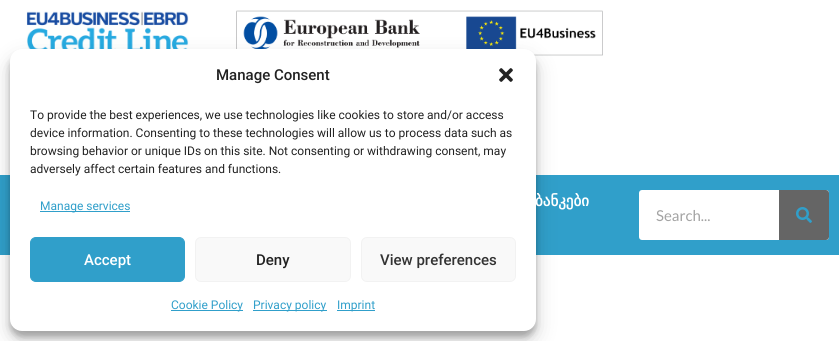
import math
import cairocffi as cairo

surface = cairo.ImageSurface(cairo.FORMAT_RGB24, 839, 341)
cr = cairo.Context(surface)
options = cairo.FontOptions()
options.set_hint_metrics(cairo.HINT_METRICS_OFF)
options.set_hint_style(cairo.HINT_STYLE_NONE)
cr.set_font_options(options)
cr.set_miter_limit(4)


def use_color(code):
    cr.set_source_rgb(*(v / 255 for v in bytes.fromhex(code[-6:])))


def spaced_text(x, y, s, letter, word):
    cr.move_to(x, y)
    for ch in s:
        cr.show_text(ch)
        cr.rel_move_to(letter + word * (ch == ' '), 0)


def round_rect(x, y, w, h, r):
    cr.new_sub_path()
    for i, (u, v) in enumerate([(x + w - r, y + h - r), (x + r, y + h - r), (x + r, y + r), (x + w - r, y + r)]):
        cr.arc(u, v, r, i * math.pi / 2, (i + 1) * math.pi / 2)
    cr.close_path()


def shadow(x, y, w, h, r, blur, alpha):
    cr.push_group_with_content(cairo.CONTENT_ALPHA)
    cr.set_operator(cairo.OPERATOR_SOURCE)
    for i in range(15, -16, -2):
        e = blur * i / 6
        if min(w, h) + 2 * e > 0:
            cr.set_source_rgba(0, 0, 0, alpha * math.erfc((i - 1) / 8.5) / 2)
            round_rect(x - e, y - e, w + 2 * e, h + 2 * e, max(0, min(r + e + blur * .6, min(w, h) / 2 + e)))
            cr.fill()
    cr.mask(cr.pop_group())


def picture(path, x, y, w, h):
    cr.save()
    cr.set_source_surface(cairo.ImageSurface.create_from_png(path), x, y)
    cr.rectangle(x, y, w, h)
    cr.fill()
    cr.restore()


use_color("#ffffff")
cr.paint()
picture("img2.png", 26, 11, 163, 38)
picture("img3.png", 236, 10, 367, 46)
use_color("#309fca")
cr.rectangle(0, 175, 839, 80)
cr.fill()
use_color("#000000")
shadow(10, 55, 526, 282, 12, 3, 0.23)
shadow(10, 59, 526, 282, 12, 10, 0.19)
use_color("#ffffff")
round_rect(10, 49, 526, 282, 12)
cr.fill()
cr.select_font_face("Roboto Medium")
cr.set_font_size(15)
use_color("#222222")
cr.move_to(216, 80)
cr.show_text("Manage Consent")
picture("img1.png", 499, 68, 14, 14)
cr.select_font_face("Roboto")
cr.set_font_size(12)
cr.move_to(30, 119)
cr.show_text("To provide the best experiences, we use technologies like cookies to store and/or access")
cr.move_to(30, 137)
cr.show_text("device information. Consenting to these technologies will allow us to process data such as")
cr.move_to(30, 155)
cr.show_text("browsing behavior or unique IDs on this site. Not consenting or withdrawing consent, may")
cr.move_to(30, 173)
cr.show_text("adversely affect certain features and functions.")
use_color("#309fca")
cr.rectangle(40, 211, 90, 1)
cr.fill()
cr.move_to(40, 210)
cr.show_text("Manage services")
round_rect(30.5, 237.5, 154, 44, 5.5)
cr.fill_preserve()
cr.set_line_width(1)
cr.stroke()
cr.select_font_face("Roboto Medium")
cr.set_font_size(15)
use_color("#ffffff")
cr.move_to(84, 265)
cr.show_text("Accept")
use_color("#f9f9f9")
round_rect(195.5, 237.5, 155, 44, 5.5)
cr.fill_preserve()
use_color("#f2f2f2")
cr.stroke()
use_color("#222222")
cr.move_to(256, 265)
cr.show_text("Deny")
use_color("#f9f9f9")
round_rect(361.5, 237.5, 154, 44, 5.5)
cr.fill_preserve()
use_color("#f2f2f2")
cr.stroke()
use_color("#333333")
cr.move_to(380, 265)
cr.show_text("View preferences")
use_color("#309fca")
cr.rectangle(171, 310, 72, 1)
cr.fill()
cr.select_font_face("Roboto")
cr.set_font_size(12)
cr.move_to(171, 309)
cr.show_text("Cookie Policy")
cr.rectangle(253, 310, 74, 1)
cr.fill()
cr.move_to(253, 309)
cr.show_text("Privacy policy")
cr.rectangle(337, 310, 38, 1)
cr.fill()
cr.move_to(337, 309)
cr.show_text("Imprint")
cr.select_font_face("DejaVu Sans", cairo.FONT_SLANT_NORMAL, cairo.FONT_WEIGHT_BOLD)
cr.set_font_size(15)
use_color("#ffffff")
spaced_text(535, 206, "ბანკები", 0, -1)
round_rect(639, 190, 190, 50, 3)
cr.fill()
cr.select_font_face("Lato")
use_color("#a3a3a3")
cr.move_to(656, 221)
cr.show_text("Search...")
use_color("#656565")
cr.new_path()
cr.move_to(779, 190)
cr.line_to(826, 190)
cr.curve_to(827.5, 190, 829, 191.5, 829, 193)
cr.line_to(829, 237)
cr.curve_to(829, 238.5, 827.5, 240, 826, 240)
cr.line_to(779, 240)
cr.close_path()
cr.fill()
picture("img4.png", 796, 207, 16, 16)
surface.write_to_png("result.png")
